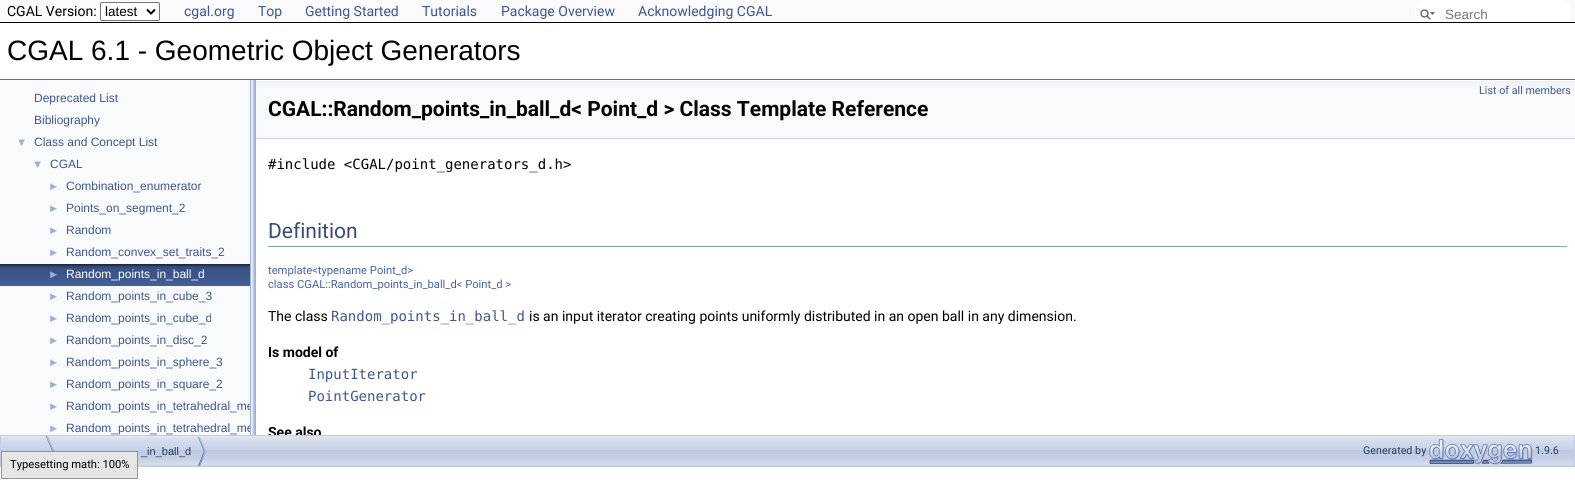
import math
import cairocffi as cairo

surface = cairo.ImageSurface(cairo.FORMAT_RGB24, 1575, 481)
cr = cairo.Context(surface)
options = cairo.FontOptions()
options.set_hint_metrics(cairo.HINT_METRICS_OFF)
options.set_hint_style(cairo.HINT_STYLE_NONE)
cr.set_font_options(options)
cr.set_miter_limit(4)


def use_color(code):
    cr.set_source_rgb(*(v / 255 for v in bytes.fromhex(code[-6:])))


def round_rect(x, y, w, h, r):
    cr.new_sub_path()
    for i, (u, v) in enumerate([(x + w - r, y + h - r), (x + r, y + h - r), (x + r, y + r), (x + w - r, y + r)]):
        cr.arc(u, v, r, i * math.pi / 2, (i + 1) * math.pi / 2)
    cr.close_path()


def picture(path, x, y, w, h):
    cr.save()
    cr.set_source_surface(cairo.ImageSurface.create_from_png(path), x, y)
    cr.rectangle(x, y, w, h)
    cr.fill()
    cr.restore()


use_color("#ffffff")
cr.paint()
use_color("#faf9fb")
cr.rectangle(0, 0, 1575, 22)
cr.fill()
use_color("#000000")
cr.rectangle(0, 22, 1575, 1)
cr.fill()
cr.select_font_face("Roboto")
cr.set_font_size(14)
cr.move_to(7, 16)
cr.show_text("CGAL Version:")
use_color("#ffffff")
round_rect(100.5, 2.5, 59, 18, 1.5)
cr.fill_preserve()
use_color("#767676")
cr.set_line_width(1)
cr.stroke()
cr.new_path()
cr.move_to(147, 9.5)
cr.line_to(151, 13.5)
cr.line_to(155, 9.5)
use_color("#000000")
cr.set_line_width(2)
cr.stroke()
cr.select_font_face("Liberation Sans")
cr.set_font_size(13.5)
cr.move_to(105, 16)
cr.show_text("latest")
cr.select_font_face("Roboto")
cr.set_font_size(14)
use_color("#3d578c")
cr.move_to(184, 16)
cr.show_text("cgal.org")
cr.move_to(258, 16)
cr.show_text("Top")
cr.move_to(305, 16)
cr.show_text("Getting Started")
cr.move_to(422, 16)
cr.show_text("Tutorials")
cr.move_to(501, 16)
cr.show_text("Package Overview")
cr.move_to(638, 16)
cr.show_text("Acknowledging CGAL")
use_color("#ffffff")
round_rect(1415, 0, 155, 22, 9)
cr.fill()
picture("img1.png", 1420, 9, 15, 11)
cr.select_font_face("Liberation Sans")
cr.set_font_size(13.5)
use_color("#757575")
cr.move_to(1445, 19)
cr.show_text("Search")
use_color("#5373b4")
cr.rectangle(0, 79, 1575, 1)
cr.fill()
cr.set_font_size(28)
use_color("#000000")
cr.move_to(7, 60)
cr.show_text("CGAL 6.1 - Geometric Object Generators")
use_color("#f9fafc")
cr.rectangle(0, 80, 250, 355)
cr.fill()
cr.set_font_size(12)
use_color("#3d578c")
cr.move_to(34, 102)
cr.show_text("Deprecated List")
cr.move_to(34, 124)
cr.show_text("Bibliography")
cr.set_font_size(11.2)
use_color("#9cafd4")
cr.move_to(16, 146)
cr.show_text("▼")
cr.set_font_size(12)
use_color("#3d578c")
cr.move_to(34, 146)
cr.show_text("Class and Concept List")
cr.set_font_size(11.2)
use_color("#9cafd4")
cr.move_to(32, 168)
cr.show_text("▼")
cr.set_font_size(12)
use_color("#3d578c")
cr.move_to(50, 168)
cr.show_text("CGAL")
cr.set_font_size(11.2)
use_color("#9cafd4")
cr.move_to(48, 190)
cr.show_text("►")
cr.set_font_size(12)
use_color("#3d578c")
cr.move_to(66, 190)
cr.show_text("Combination_enumerator")
cr.set_font_size(11.2)
use_color("#9cafd4")
cr.move_to(48, 212)
cr.show_text("►")
cr.set_font_size(12)
use_color("#3d578c")
cr.move_to(66, 212)
cr.show_text("Points_on_segment_2")
cr.set_font_size(11.2)
use_color("#9cafd4")
cr.move_to(48, 234)
cr.show_text("►")
cr.set_font_size(12)
use_color("#3d578c")
cr.move_to(66, 234)
cr.show_text("Random")
cr.set_font_size(11.2)
use_color("#9cafd4")
cr.move_to(48, 256)
cr.show_text("►")
cr.set_font_size(12)
use_color("#3d578c")
cr.move_to(66, 256)
cr.show_text("Random_convex_set_traits_2")
picture("img2.png", 0, 264, 250, 22)
cr.set_font_size(11.2)
use_color("#9cafd4")
cr.move_to(48, 278)
cr.show_text("►")
cr.set_font_size(12)
use_color("#ffffff")
cr.move_to(66, 278)
cr.show_text("Random_points_in_ball_d")
cr.set_font_size(11.2)
use_color("#9cafd4")
cr.move_to(48, 300)
cr.show_text("►")
cr.set_font_size(12)
use_color("#3d578c")
cr.move_to(66, 300)
cr.show_text("Random_points_in_cube_3")
cr.set_font_size(11.2)
use_color("#9cafd4")
cr.move_to(48, 322)
cr.show_text("►")
cr.set_font_size(12)
use_color("#3d578c")
cr.move_to(66, 322)
cr.show_text("Random_points_in_cube_d")
cr.set_font_size(11.2)
use_color("#9cafd4")
cr.move_to(48, 344)
cr.show_text("►")
cr.set_font_size(12)
use_color("#3d578c")
cr.move_to(66, 344)
cr.show_text("Random_points_in_disc_2")
cr.set_font_size(11.2)
use_color("#9cafd4")
cr.move_to(48, 366)
cr.show_text("►")
cr.set_font_size(12)
use_color("#3d578c")
cr.move_to(66, 366)
cr.show_text("Random_points_in_sphere_3")
cr.set_font_size(11.2)
use_color("#9cafd4")
cr.move_to(48, 388)
cr.show_text("►")
cr.set_font_size(12)
use_color("#3d578c")
cr.move_to(66, 388)
cr.show_text("Random_points_in_square_2")
cr.set_font_size(11.2)
use_color("#9cafd4")
cr.move_to(48, 410)
cr.show_text("►")
cr.set_font_size(12)
use_color("#3d578c")
cr.move_to(66, 410)
cr.show_text("Random_points_in_tetrahedral_me")
cr.set_font_size(11.2)
use_color("#9cafd4")
cr.move_to(48, 432)
cr.show_text("►")
cr.set_font_size(12)
use_color("#3d578c")
cr.move_to(66, 432)
cr.show_text("Random_points_in_tetrahedral_me")
picture("img3.png", 250, 80, 6, 355)
use_color("#f9fafc")
cr.rectangle(256, 88, 1319, 50)
cr.fill()
picture("img4.png", 256, 80, 1319, 8)
use_color("#c4cfe5")
cr.rectangle(256, 138, 1319, 1)
cr.fill()
cr.select_font_face("Roboto")
cr.set_font_size(10.75)
use_color("#3d578c")
cr.move_to(1479, 94)
cr.show_text("List of all members")
cr.select_font_face("Roboto", cairo.FONT_SLANT_NORMAL, cairo.FONT_WEIGHT_BOLD)
cr.set_font_size(21)
use_color("#000000")
cr.move_to(268, 116)
cr.show_text("CGAL::Random_points_in_ball_d< Point_d > Class Template Reference")
cr.select_font_face("DejaVu Sans Mono")
cr.set_font_size(14)
cr.move_to(268, 169)
cr.show_text("#include <CGAL/point_generators_d.h>")
use_color("#879ecb")
cr.rectangle(268, 246, 1299, 1)
cr.fill()
cr.select_font_face("Roboto")
cr.set_font_size(21)
use_color("#354c7b")
cr.move_to(268, 238)
cr.show_text("Definition")
cr.set_font_size(11.2)
use_color("#4665a2")
cr.move_to(268, 274)
cr.show_text("template<typename Point_d>")
cr.move_to(268, 288)
cr.show_text("class CGAL::Random_points_in_ball_d< Point_d >")
cr.set_font_size(14)
use_color("#000000")
cr.move_to(268, 321)
cr.show_text("The class")
cr.select_font_face("DejaVu Sans Mono")
use_color("#3d578c")
cr.move_to(331, 321)
cr.show_text("Random_points_in_ball_d")
cr.select_font_face("Roboto")
use_color("#000000")
cr.move_to(529, 321)
cr.show_text("is an input iterator creating points uniformly distributed in an open ball in any dimension.")
cr.select_font_face("Roboto", cairo.FONT_SLANT_NORMAL, cairo.FONT_WEIGHT_BOLD)
cr.move_to(268, 357)
cr.show_text("Is model of")
cr.select_font_face("DejaVu Sans Mono")
use_color("#3d578c")
cr.move_to(308, 379)
cr.show_text("InputIterator")
cr.move_to(308, 401)
cr.show_text("PointGenerator")
cr.select_font_face("Roboto", cairo.FONT_SLANT_NORMAL, cairo.FONT_WEIGHT_BOLD)
use_color("#000000")
cr.move_to(268, 437)
cr.show_text("See also")
picture("img5.png", 1, 436, 1573, 30)
cr.rectangle(0.5, 435.5, 1574, 31)
use_color("#c2cde4")
cr.set_line_width(1)
cr.stroke()
picture("img6.png", 46, 436, 8, 15)
picture("img7.png", 198, 437, 8, 29)
cr.select_font_face("Liberation Sans")
cr.set_font_size(11)
use_color("#283a5d")
cr.move_to(141, 455)
cr.show_text("_in_ball_d")
cr.select_font_face("Roboto")
cr.set_font_size(10.75)
cr.move_to(1363, 454)
cr.show_text("Generated by")
picture("img8.png", 1429, 439, 104, 26)
cr.move_to(1535, 454)
cr.show_text("1.9.6")
use_color("#e6e6e6")
cr.rectangle(1.5, 451.5, 136, 27)
cr.fill_preserve()
use_color("#959595")
cr.stroke()
cr.set_font_size(11.2)
use_color("#000000")
cr.move_to(10, 468)
cr.show_text("Typesetting math: 100%")
surface.write_to_png("result.png")
